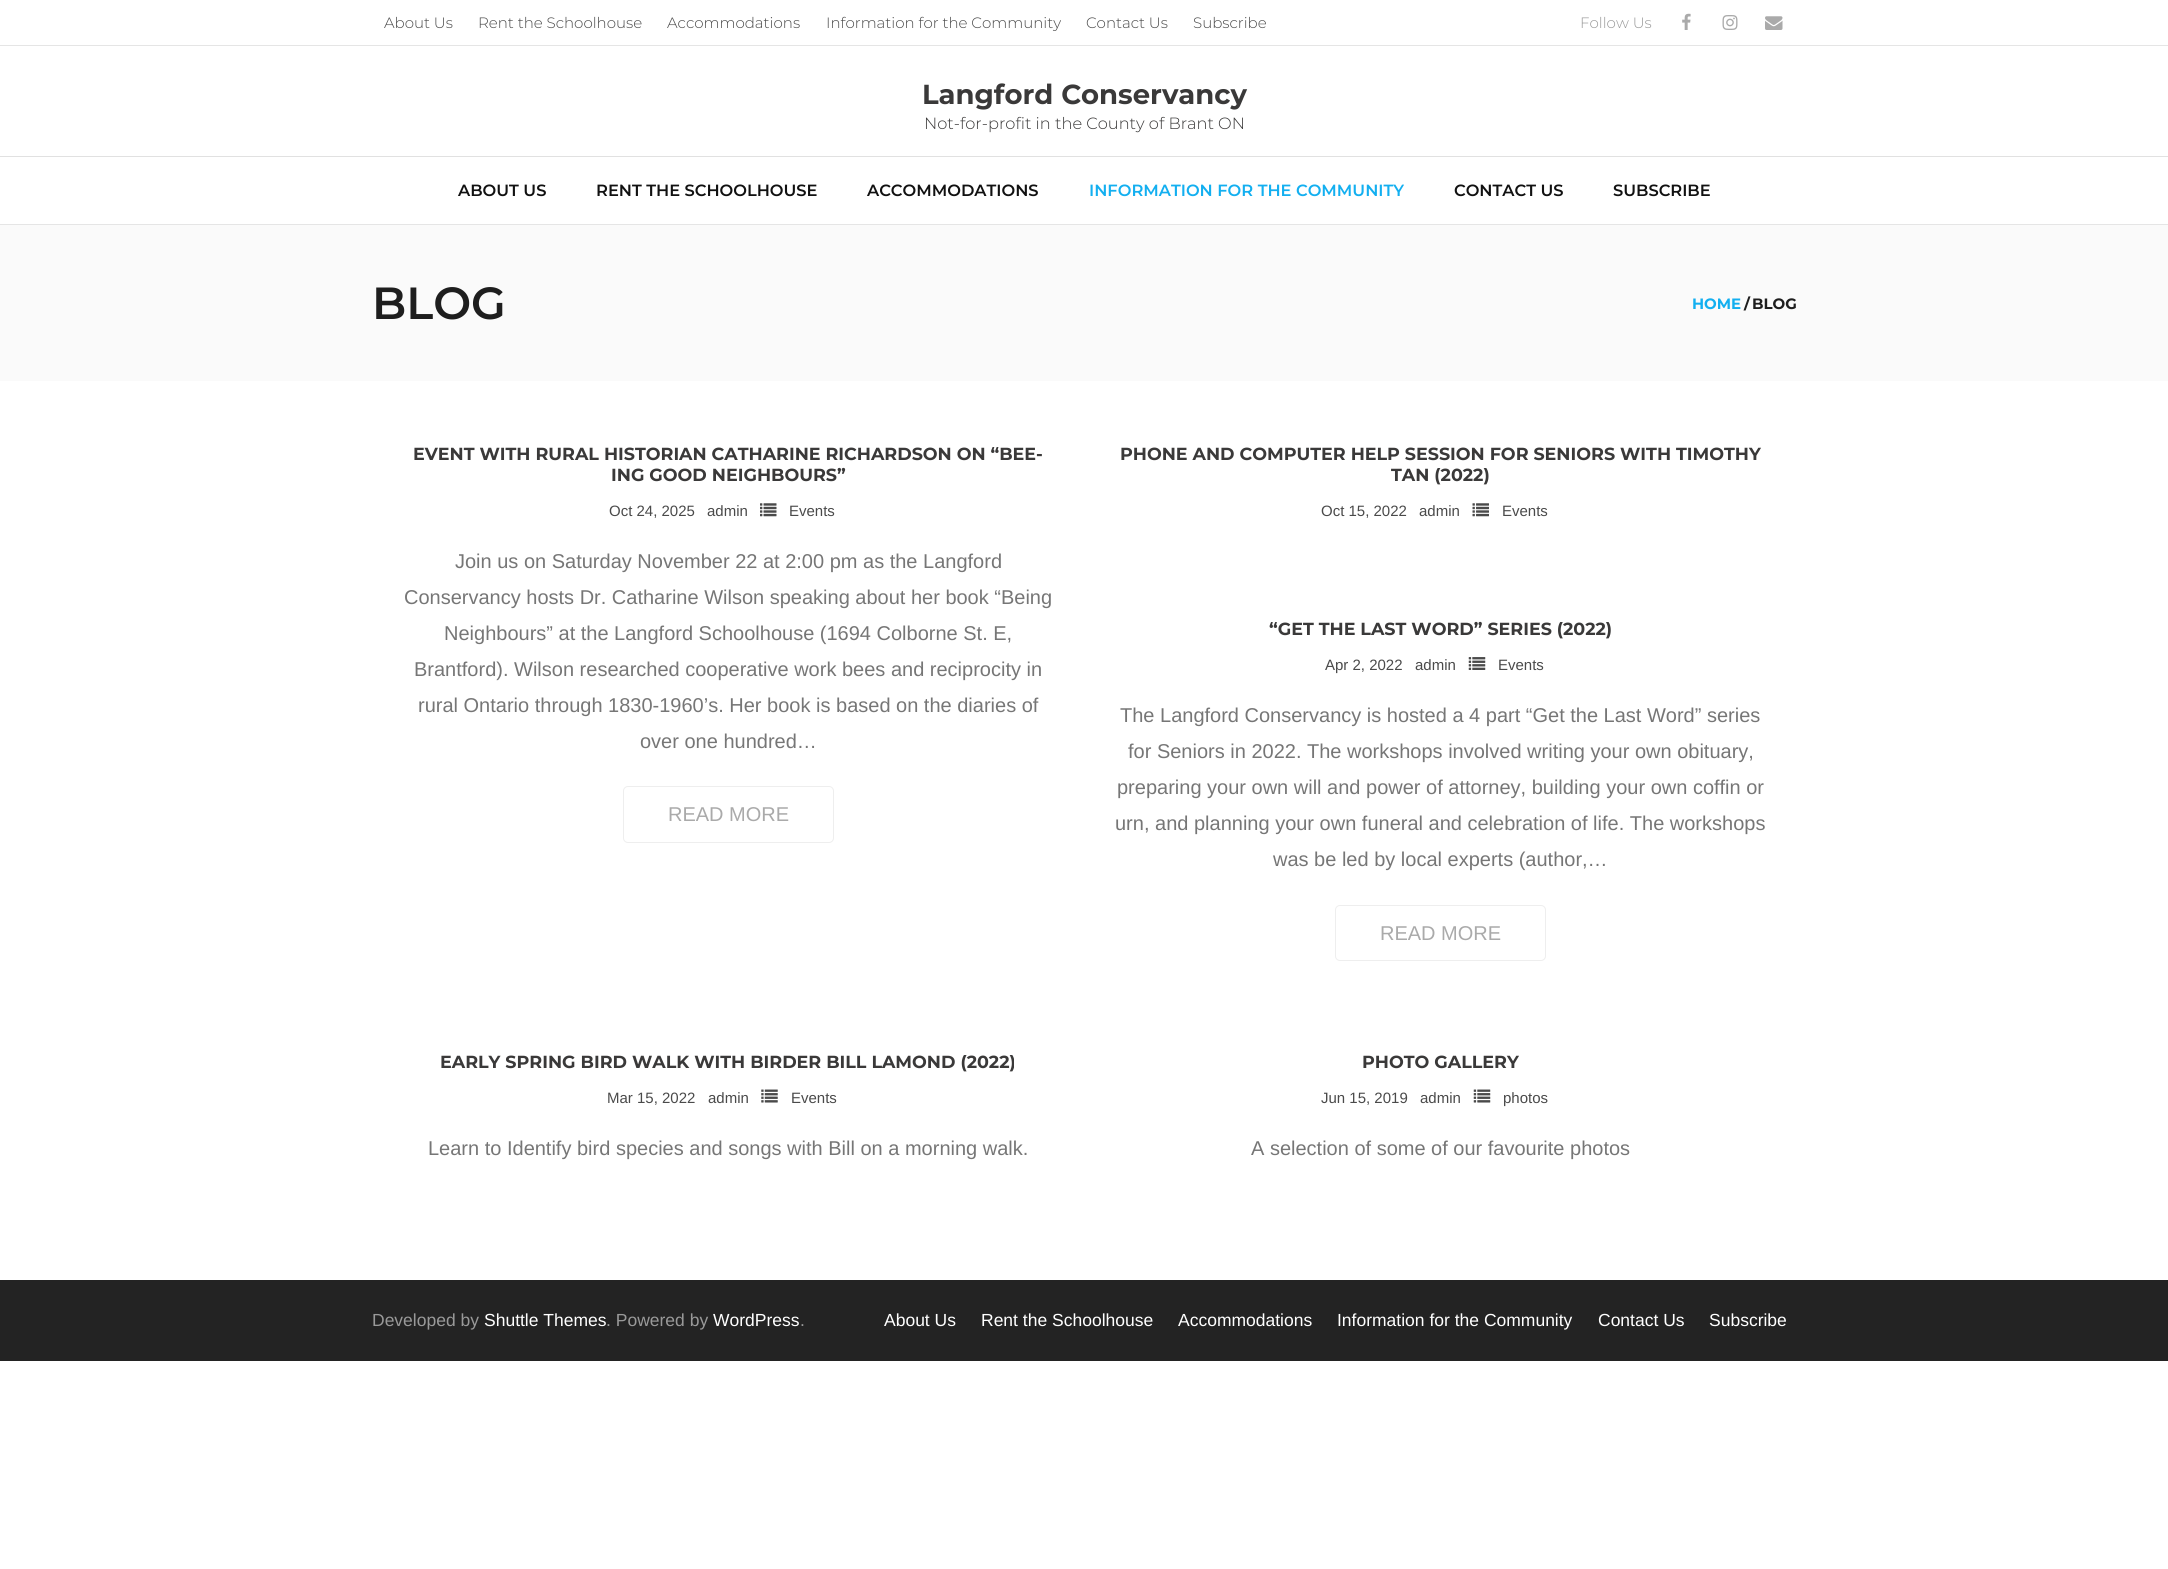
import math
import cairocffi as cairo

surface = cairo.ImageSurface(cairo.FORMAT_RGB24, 2168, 1569)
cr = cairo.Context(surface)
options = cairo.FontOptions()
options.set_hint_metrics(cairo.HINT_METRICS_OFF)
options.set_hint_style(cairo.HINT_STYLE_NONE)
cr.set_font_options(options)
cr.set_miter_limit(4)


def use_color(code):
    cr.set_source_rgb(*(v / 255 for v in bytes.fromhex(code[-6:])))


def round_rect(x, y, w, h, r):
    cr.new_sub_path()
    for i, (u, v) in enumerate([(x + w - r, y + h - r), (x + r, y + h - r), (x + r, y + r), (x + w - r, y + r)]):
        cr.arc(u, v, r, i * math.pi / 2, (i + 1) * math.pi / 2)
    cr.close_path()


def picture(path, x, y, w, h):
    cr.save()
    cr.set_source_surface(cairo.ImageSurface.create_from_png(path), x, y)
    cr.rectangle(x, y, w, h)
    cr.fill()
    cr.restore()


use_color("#ffffff")
cr.paint()
use_color("#e5e5e5")
cr.rectangle(0, 45, 2168, 1)
cr.fill()
cr.select_font_face("Montserrat Light")
cr.set_font_size(15)
use_color("#4a4a4a")
cr.move_to(384, 28)
cr.show_text("About Us")
cr.move_to(478, 28)
cr.show_text("Rent the Schoolhouse")
cr.move_to(667, 28)
cr.show_text("Accommodations")
cr.move_to(826, 28)
cr.show_text("Information for the Community")
cr.move_to(1086, 28)
cr.show_text("Contact Us")
cr.move_to(1193, 28)
cr.show_text("Subscribe")
use_color("#999999")
cr.move_to(1580, 28)
cr.show_text("Follow Us")
picture("img1.png", 1682, 13, 9, 17)
picture("img2.png", 1722, 15, 16, 15)
picture("img3.png", 1765, 16, 18, 14)
use_color("#e5e5e5")
cr.rectangle(0, 224, 2168, 1)
cr.fill()
cr.select_font_face("Montserrat", cairo.FONT_SLANT_NORMAL, cairo.FONT_WEIGHT_BOLD)
cr.set_font_size(27.5)
use_color("#3a3939")
cr.move_to(922, 104)
cr.show_text("Langford Conservancy")
cr.select_font_face("Montserrat Light")
cr.set_font_size(16.25)
cr.move_to(924, 129)
cr.show_text("Not-for-profit in the County of Brant ON")
use_color("#e1e1e1")
cr.rectangle(0, 156, 2168, 1)
cr.fill()
cr.select_font_face("Montserrat SemiBold")
use_color("#111111")
cr.move_to(458, 196)
cr.show_text("ABOUT US")
cr.move_to(596, 196)
cr.show_text("RENT THE SCHOOLHOUSE")
cr.move_to(867, 196)
cr.show_text("ACCOMMODATIONS")
use_color("#13aff0")
cr.move_to(1089, 196)
cr.show_text("INFORMATION FOR THE COMMUNITY")
use_color("#111111")
cr.move_to(1454, 196)
cr.show_text("CONTACT US")
cr.move_to(1613, 196)
cr.show_text("SUBSCRIBE")
use_color("#fafafa")
cr.rectangle(0, 225, 2168, 156)
cr.fill()
cr.set_font_size(45)
use_color("#1e1e1e")
cr.move_to(372, 319)
cr.show_text("BLOG")
cr.select_font_face("Montserrat", cairo.FONT_SLANT_NORMAL, cairo.FONT_WEIGHT_BOLD)
cr.set_font_size(15)
use_color("#13aff0")
cr.move_to(1692, 309)
cr.show_text("HOME")
use_color("#1e1e1e")
cr.move_to(1744, 309)
cr.show_text("/")
cr.move_to(1752, 309)
cr.show_text("BLOG")
cr.set_font_size(17.5)
use_color("#3a3939")
cr.move_to(413, 460)
cr.show_text("EVENT WITH RURAL HISTORIAN CATHARINE RICHARDSON ON “BEE-")
cr.move_to(611, 481)
cr.show_text("ING GOOD NEIGHBOURS”")
cr.select_font_face("Liberation Sans")
cr.set_font_size(15)
use_color("#4a4a4a")
cr.move_to(609, 516)
cr.show_text("Oct 24, 2025")
cr.move_to(707, 516)
cr.show_text("admin")
picture("img4.png", 760, 503, 17, 14)
cr.move_to(789, 516)
cr.show_text("Events")
cr.set_font_size(20)
use_color("#767676")
cr.move_to(455, 568)
cr.show_text("Join us on Saturday November 22 at 2:00 pm as the Langford")
cr.move_to(404, 604)
cr.show_text("Conservancy hosts Dr. Catharine Wilson speaking about her book “Being")
cr.move_to(444, 640)
cr.show_text("Neighbours” at the Langford Schoolhouse (1694 Colborne St. E,")
cr.move_to(414, 676)
cr.show_text("Brantford). Wilson researched cooperative work bees and reciprocity in")
cr.move_to(418, 712)
cr.show_text("rural Ontario through 1830-1960’s. Her book is based on the diaries of")
cr.move_to(640, 748)
cr.show_text("over one hundred…")
round_rect(623.5, 786.5, 210, 56, 4.5)
use_color("#eeeeee")
cr.set_line_width(1)
cr.stroke()
use_color("#aaaaaa")
cr.move_to(668, 821)
cr.show_text("READ MORE")
cr.select_font_face("Montserrat", cairo.FONT_SLANT_NORMAL, cairo.FONT_WEIGHT_BOLD)
cr.set_font_size(17.5)
use_color("#3a3939")
cr.move_to(1120, 460)
cr.show_text("PHONE AND COMPUTER HELP SESSION FOR SENIORS WITH TIMOTHY")
cr.move_to(1391, 481)
cr.show_text("TAN (2022)")
cr.select_font_face("Liberation Sans")
cr.set_font_size(15)
use_color("#4a4a4a")
cr.move_to(1321, 516)
cr.show_text("Oct 15, 2022")
cr.move_to(1419, 516)
cr.show_text("admin")
picture("img5.png", 1472, 503, 17, 14)
cr.move_to(1502, 516)
cr.show_text("Events")
cr.select_font_face("Montserrat", cairo.FONT_SLANT_NORMAL, cairo.FONT_WEIGHT_BOLD)
cr.set_font_size(17.5)
use_color("#3a3939")
cr.move_to(1269, 635)
cr.show_text("“GET THE LAST WORD” SERIES (2022)")
cr.select_font_face("Liberation Sans")
cr.set_font_size(15)
use_color("#4a4a4a")
cr.move_to(1325, 670)
cr.show_text("Apr 2, 2022")
cr.move_to(1415, 670)
cr.show_text("admin")
picture("img6.png", 1468, 657, 18, 13)
cr.move_to(1498, 670)
cr.show_text("Events")
cr.set_font_size(20)
use_color("#767676")
cr.move_to(1120, 722)
cr.show_text("The Langford Conservancy is hosted a 4 part “Get the Last Word” series")
cr.move_to(1128, 758)
cr.show_text("for Seniors in 2022. The workshops involved writing your own obituary,")
cr.move_to(1117, 794)
cr.show_text("preparing your own will and power of attorney, building your own coffin or")
cr.move_to(1115, 830)
cr.show_text("urn, and planning your own funeral and celebration of life. The workshops")
cr.move_to(1273, 866)
cr.show_text("was be led by local experts (author,…")
round_rect(1335.5, 905.5, 210, 55, 4.5)
use_color("#eeeeee")
cr.stroke()
use_color("#aaaaaa")
cr.move_to(1380, 940)
cr.show_text("READ MORE")
cr.select_font_face("Montserrat", cairo.FONT_SLANT_NORMAL, cairo.FONT_WEIGHT_BOLD)
cr.set_font_size(17.5)
use_color("#3a3939")
cr.move_to(440, 1068)
cr.show_text("EARLY SPRING BIRD WALK WITH BIRDER BILL LAMOND (2022)")
cr.select_font_face("Liberation Sans")
cr.set_font_size(15)
use_color("#4a4a4a")
cr.move_to(607, 1103)
cr.show_text("Mar 15, 2022")
cr.move_to(708, 1103)
cr.show_text("admin")
picture("img7.png", 761, 1089, 17, 14)
cr.move_to(791, 1103)
cr.show_text("Events")
cr.set_font_size(20)
use_color("#767676")
cr.move_to(428, 1155)
cr.show_text("Learn to Identify bird species and songs with Bill on a morning walk.")
cr.select_font_face("Montserrat", cairo.FONT_SLANT_NORMAL, cairo.FONT_WEIGHT_BOLD)
cr.set_font_size(17.5)
use_color("#3a3939")
cr.move_to(1362, 1068)
cr.show_text("PHOTO GALLERY")
cr.select_font_face("Liberation Sans")
cr.set_font_size(15)
use_color("#4a4a4a")
cr.move_to(1321, 1103)
cr.show_text("Jun 15, 2019")
cr.move_to(1420, 1103)
cr.show_text("admin")
picture("img8.png", 1473, 1089, 18, 14)
cr.move_to(1503, 1103)
cr.show_text("photos")
cr.set_font_size(20)
use_color("#767676")
cr.move_to(1251, 1155)
cr.show_text("A selection of some of our favourite photos")
use_color("#232323")
cr.rectangle(0, 1280, 2168, 81)
cr.fill()
cr.set_font_size(17.5)
use_color("#999999")
cr.move_to(372, 1326)
cr.show_text("Developed by")
use_color("#ffffff")
cr.move_to(484, 1326)
cr.show_text("Shuttle Themes")
use_color("#999999")
cr.move_to(606, 1326)
cr.show_text(". Powered by")
use_color("#ffffff")
cr.move_to(713, 1326)
cr.show_text("WordPress")
use_color("#999999")
cr.move_to(800, 1326)
cr.show_text(".")
use_color("#ffffff")
cr.move_to(884, 1326)
cr.show_text("About Us")
cr.move_to(981, 1326)
cr.show_text("Rent the Schoolhouse")
cr.move_to(1178, 1326)
cr.show_text("Accommodations")
cr.move_to(1337, 1326)
cr.show_text("Information for the Community")
cr.move_to(1598, 1326)
cr.show_text("Contact Us")
cr.move_to(1709, 1326)
cr.show_text("Subscribe")
surface.write_to_png("result.png")
